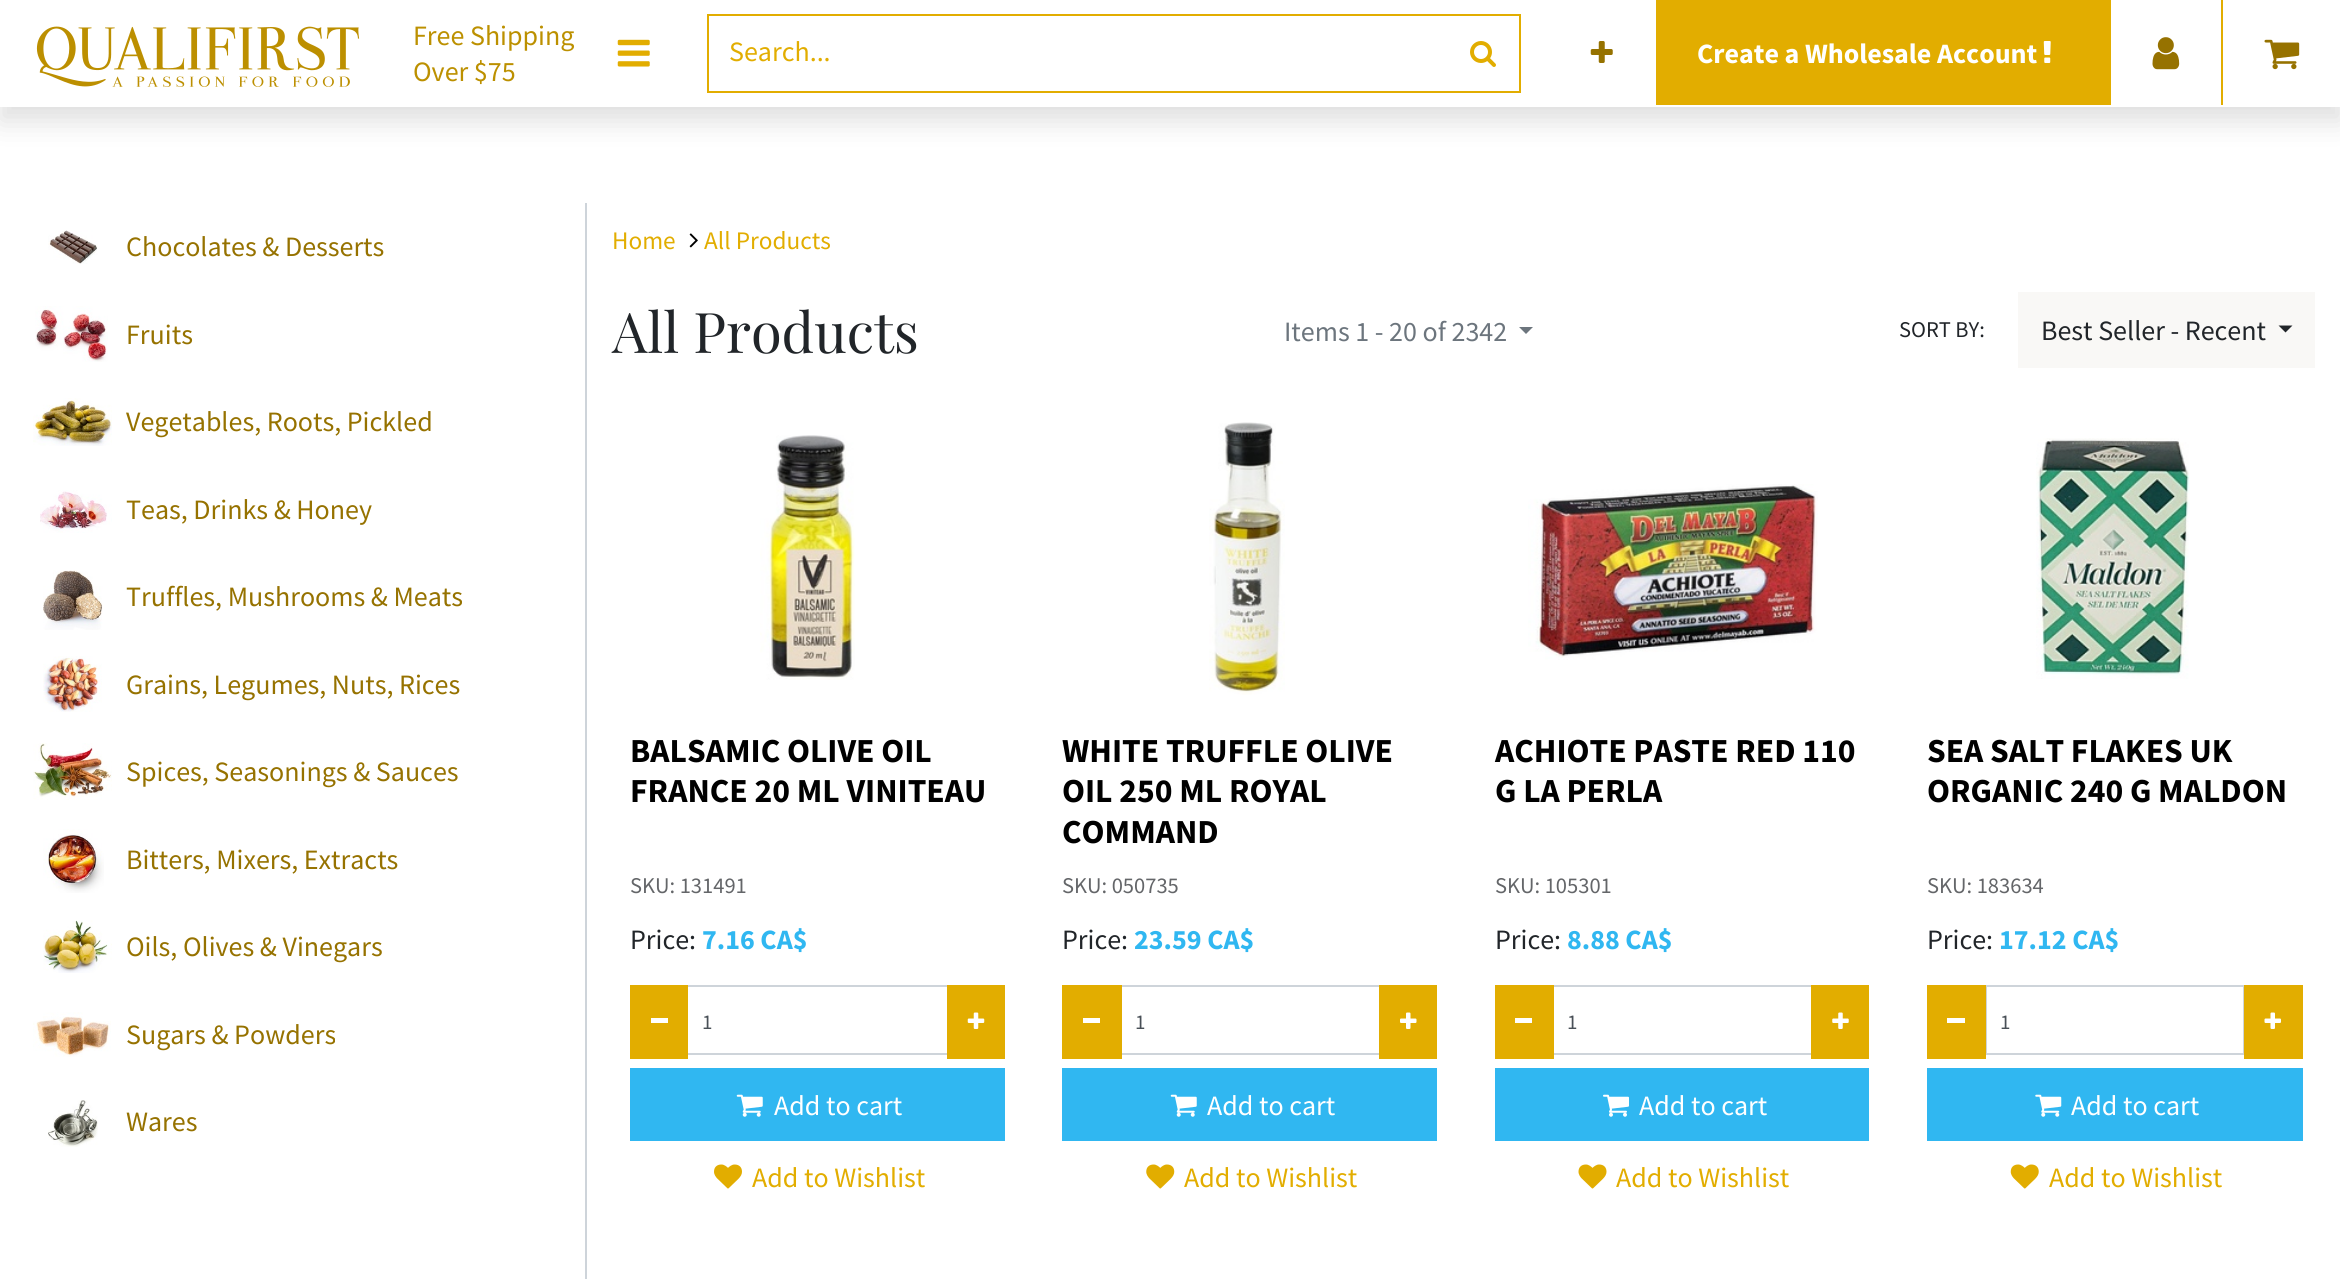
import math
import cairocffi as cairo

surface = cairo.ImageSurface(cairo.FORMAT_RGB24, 2340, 1279)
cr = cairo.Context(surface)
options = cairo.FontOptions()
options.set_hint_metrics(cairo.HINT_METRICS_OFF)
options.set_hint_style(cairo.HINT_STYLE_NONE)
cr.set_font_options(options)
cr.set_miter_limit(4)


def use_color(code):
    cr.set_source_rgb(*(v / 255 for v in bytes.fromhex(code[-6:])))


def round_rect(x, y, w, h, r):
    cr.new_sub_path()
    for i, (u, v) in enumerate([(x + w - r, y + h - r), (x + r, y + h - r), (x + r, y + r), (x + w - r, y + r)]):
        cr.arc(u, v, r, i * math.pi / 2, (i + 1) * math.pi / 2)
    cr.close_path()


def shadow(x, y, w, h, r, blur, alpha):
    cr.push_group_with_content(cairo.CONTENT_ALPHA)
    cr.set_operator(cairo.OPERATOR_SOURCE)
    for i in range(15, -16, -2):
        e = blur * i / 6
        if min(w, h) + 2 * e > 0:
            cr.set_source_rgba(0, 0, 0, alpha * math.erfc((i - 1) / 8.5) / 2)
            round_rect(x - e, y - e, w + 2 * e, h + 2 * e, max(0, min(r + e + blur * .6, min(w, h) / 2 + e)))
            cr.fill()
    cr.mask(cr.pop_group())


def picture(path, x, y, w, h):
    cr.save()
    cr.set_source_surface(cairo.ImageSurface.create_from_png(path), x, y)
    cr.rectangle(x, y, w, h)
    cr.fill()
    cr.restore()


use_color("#ffffff")
cr.paint()
use_color("#222222")
shadow(0, 14, 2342, 107, 0, 14, 0.15)
use_color("#ffffff")
cr.rectangle(0, 0, 2340, 107)
cr.fill()
picture("img1.png", 36, 26, 324, 61)
cr.select_font_face("Source Sans Pro")
cr.set_font_size(28)
use_color("#bc9000")
cr.move_to(413, 45)
cr.show_text("Free Shipping")
cr.move_to(413, 81)
cr.show_text("Over $75")
picture("img2.png", 617, 39, 33, 28)
cr.rectangle(708, 15, 812, 77)
use_color("#e2ad00")
cr.stroke()
cr.move_to(729, 61)
cr.show_text("Search...")
picture("img3.png", 1470, 41, 26, 26)
picture("img4.png", 1590, 41, 23, 22)
cr.rectangle(1656, 0, 455, 105)
cr.fill()
cr.select_font_face("Source Sans Pro", cairo.FONT_SLANT_NORMAL, cairo.FONT_WEIGHT_BOLD)
use_color("#ffffff")
cr.move_to(1697, 63)
cr.show_text("Create a Wholesale Account")
picture("img5.png", 2043, 41, 8, 22)
picture("img6.png", 2152, 37, 28, 33)
use_color("#e2ad00")
cr.rectangle(2221, 0, 2, 105)
cr.fill()
picture("img7.png", 2264, 39, 36, 31)
use_color("#ced4da")
cr.rectangle(585, 203, 2, 1076)
cr.fill()
picture("img8.png", 48, 230, 50, 34)
cr.select_font_face("Source Sans Pro")
use_color("#967200")
cr.move_to(126, 256)
cr.show_text("Chocolates & Desserts")
picture("img9.png", 35, 306, 73, 56)
cr.move_to(126, 344)
cr.show_text("Fruits")
picture("img10.png", 33, 398, 79, 48)
cr.move_to(126, 431)
cr.show_text("Vegetables, Roots, Pickled")
picture("img11.png", 40, 490, 72, 43)
cr.move_to(126, 519)
cr.show_text("Teas, Drinks & Honey")
picture("img12.png", 43, 570, 60, 60)
cr.move_to(126, 606)
cr.show_text("Truffles, Mushrooms & Meats")
picture("img13.png", 43, 656, 59, 56)
cr.move_to(126, 694)
cr.show_text("Grains, Legumes, Nuts, Rices")
picture("img14.png", 33, 743, 79, 57)
cr.move_to(126, 781)
cr.show_text("Spices, Seasonings & Sauces")
picture("img15.png", 43, 829, 61, 64)
cr.move_to(126, 869)
cr.show_text("Bitters, Mixers, Extracts")
picture("img16.png", 43, 920, 69, 53)
cr.move_to(126, 956)
cr.show_text("Oils, Olives & Vinegars")
picture("img17.png", 33, 1012, 78, 45)
cr.move_to(126, 1044)
cr.show_text("Sugars & Powders")
picture("img18.png", 48, 1100, 50, 47)
cr.move_to(126, 1131)
cr.show_text("Wares")
cr.set_font_size(25.25)
use_color("#e2ad00")
cr.move_to(612, 249)
cr.show_text("Home")
picture("img19.png", 689, 233, 9, 15)
cr.move_to(704, 249)
cr.show_text("All Products")
cr.select_font_face("Playfair Display")
cr.set_font_size(56)
use_color("#212529")
cr.move_to(612, 353)
cr.show_text("All Products")
cr.select_font_face("Source Sans Pro")
cr.set_font_size(28)
use_color("#6c757d")
cr.move_to(1284, 341)
cr.show_text("Items 1 - 20 of 2342")
cr.new_path()
cr.move_to(1519, 327)
cr.line_to(1533, 327)
cr.line_to(1526, 334)
cr.close_path()
cr.fill()
cr.set_font_size(22.5)
use_color("#212529")
cr.move_to(1899, 337)
cr.show_text("SORT BY:")
use_color("#f9f8f6")
cr.rectangle(2018, 292, 297, 76)
cr.fill()
cr.set_font_size(28)
use_color("#212529")
cr.move_to(2041, 340)
cr.show_text("Best Seller - Recent")
cr.new_path()
cr.move_to(2278.5, 325.5)
cr.line_to(2292.5, 325.5)
cr.line_to(2285.5, 332.5)
cr.close_path()
cr.fill()
picture("img20.png", 760, 435, 95, 245)
cr.select_font_face("Source Sans Pro", cairo.FONT_SLANT_NORMAL, cairo.FONT_WEIGHT_BOLD)
cr.set_font_size(33.6)
use_color("#000000")
cr.move_to(630, 762)
cr.show_text("BALSAMIC OLIVE OIL")
cr.move_to(630, 802)
cr.show_text("FRANCE 20 ML VINITEAU")
cr.select_font_face("Source Sans Pro")
cr.set_font_size(22.5)
use_color("#646669")
cr.move_to(630, 893)
cr.show_text("SKU: 131491")
cr.set_font_size(28)
use_color("#212529")
cr.move_to(630, 949)
cr.show_text("Price:")
cr.select_font_face("Source Sans Pro", cairo.FONT_SLANT_NORMAL, cairo.FONT_WEIGHT_BOLD)
use_color("#30b7f1")
cr.move_to(702, 949)
cr.show_text("7.16 CA$")
cr.rectangle(687, 986, 261, 68)
use_color("#ced4da")
cr.stroke()
use_color("#e2ad00")
cr.rectangle(630, 985, 58, 74)
cr.fill()
use_color("#ffffff")
cr.rectangle(651, 1018, 17, 5)
cr.fill()
cr.select_font_face("Source Sans Pro")
cr.set_font_size(21)
use_color("#495057")
cr.move_to(702, 1029)
cr.show_text("1")
use_color("#e2ad00")
cr.rectangle(947, 985, 58, 74)
cr.fill()
picture("img21.png", 967, 1012, 18, 17)
use_color("#30b7f1")
cr.rectangle(630, 1068, 375, 73)
cr.fill()
picture("img22.png", 736, 1094, 27, 23)
cr.set_font_size(28)
use_color("#ffffff")
cr.move_to(774, 1115)
cr.show_text("Add to cart")
picture("img23.png", 714, 1164, 28, 25)
use_color("#e2ad00")
cr.move_to(752, 1187)
cr.show_text("Add to Wishlist")
picture("img24.png", 1209, 422, 76, 273)
cr.select_font_face("Source Sans Pro", cairo.FONT_SLANT_NORMAL, cairo.FONT_WEIGHT_BOLD)
cr.set_font_size(33.6)
use_color("#000000")
cr.move_to(1062, 762)
cr.show_text("WHITE TRUFFLE OLIVE")
cr.move_to(1062, 802)
cr.show_text("OIL 250 ML ROYAL")
cr.move_to(1062, 843)
cr.show_text("COMMAND")
cr.select_font_face("Source Sans Pro")
cr.set_font_size(22.5)
use_color("#646669")
cr.move_to(1062, 893)
cr.show_text("SKU: 050735")
cr.set_font_size(28)
use_color("#212529")
cr.move_to(1062, 949)
cr.show_text("Price:")
cr.select_font_face("Source Sans Pro", cairo.FONT_SLANT_NORMAL, cairo.FONT_WEIGHT_BOLD)
use_color("#30b7f1")
cr.move_to(1134, 949)
cr.show_text("23.59 CA$")
cr.rectangle(1121, 986, 259, 68)
use_color("#ced4da")
cr.stroke()
use_color("#e2ad00")
cr.rectangle(1062, 985, 60, 74)
cr.fill()
use_color("#ffffff")
cr.rectangle(1083, 1018, 17, 5)
cr.fill()
cr.select_font_face("Source Sans Pro")
cr.set_font_size(21)
use_color("#495057")
cr.move_to(1135, 1029)
cr.show_text("1")
use_color("#e2ad00")
cr.rectangle(1379, 985, 58, 74)
cr.fill()
picture("img25.png", 1400, 1012, 17, 17)
use_color("#30b7f1")
cr.rectangle(1062, 1068, 375, 73)
cr.fill()
picture("img22.png", 1170, 1094, 27, 23)
cr.set_font_size(28)
use_color("#ffffff")
cr.move_to(1207, 1115)
cr.show_text("Add to cart")
picture("img26.png", 1146, 1164, 29, 25)
use_color("#e2ad00")
cr.move_to(1184, 1187)
cr.show_text("Add to Wishlist")
picture("img27.png", 1528, 484, 290, 176)
cr.select_font_face("Source Sans Pro", cairo.FONT_SLANT_NORMAL, cairo.FONT_WEIGHT_BOLD)
cr.set_font_size(33.6)
use_color("#000000")
cr.move_to(1495, 762)
cr.show_text("ACHIOTE PASTE RED 110")
cr.move_to(1495, 802)
cr.show_text("G LA PERLA")
cr.select_font_face("Source Sans Pro")
cr.set_font_size(22.5)
use_color("#646669")
cr.move_to(1495, 893)
cr.show_text("SKU: 105301")
cr.set_font_size(28)
use_color("#212529")
cr.move_to(1495, 949)
cr.show_text("Price:")
cr.select_font_face("Source Sans Pro", cairo.FONT_SLANT_NORMAL, cairo.FONT_WEIGHT_BOLD)
use_color("#30b7f1")
cr.move_to(1567, 949)
cr.show_text("8.88 CA$")
cr.rectangle(1553, 986, 259, 68)
use_color("#ced4da")
cr.stroke()
use_color("#e2ad00")
cr.rectangle(1495, 985, 59, 74)
cr.fill()
use_color("#ffffff")
cr.rectangle(1515, 1018, 17, 5)
cr.fill()
cr.select_font_face("Source Sans Pro")
cr.set_font_size(21)
use_color("#495057")
cr.move_to(1567, 1029)
cr.show_text("1")
use_color("#e2ad00")
cr.rectangle(1811, 985, 58, 74)
cr.fill()
picture("img28.png", 1832, 1012, 17, 17)
use_color("#30b7f1")
cr.rectangle(1495, 1068, 374, 73)
cr.fill()
picture("img29.png", 1603, 1094, 26, 23)
cr.set_font_size(28)
use_color("#ffffff")
cr.move_to(1639, 1115)
cr.show_text("Add to cart")
picture("img30.png", 1578, 1164, 29, 25)
use_color("#e2ad00")
cr.move_to(1616, 1187)
cr.show_text("Add to Wishlist")
picture("img31.png", 2036, 438, 154, 241)
cr.select_font_face("Source Sans Pro", cairo.FONT_SLANT_NORMAL, cairo.FONT_WEIGHT_BOLD)
cr.set_font_size(33.6)
use_color("#000000")
cr.move_to(1927, 762)
cr.show_text("SEA SALT FLAKES UK")
cr.move_to(1927, 802)
cr.show_text("ORGANIC 240 G MALDON")
cr.select_font_face("Source Sans Pro")
cr.set_font_size(22.5)
use_color("#646669")
cr.move_to(1927, 893)
cr.show_text("SKU: 183634")
cr.set_font_size(28)
use_color("#212529")
cr.move_to(1927, 949)
cr.show_text("Price:")
cr.select_font_face("Source Sans Pro", cairo.FONT_SLANT_NORMAL, cairo.FONT_WEIGHT_BOLD)
use_color("#30b7f1")
cr.move_to(1999, 949)
cr.show_text("17.12 CA$")
cr.rectangle(1986, 986, 258, 68)
use_color("#ced4da")
cr.stroke()
use_color("#e2ad00")
cr.rectangle(1927, 985, 59, 74)
cr.fill()
use_color("#ffffff")
cr.rectangle(1947, 1018, 18, 5)
cr.fill()
cr.select_font_face("Source Sans Pro")
cr.set_font_size(21)
use_color("#495057")
cr.move_to(2000, 1029)
cr.show_text("1")
use_color("#e2ad00")
cr.rectangle(2244, 985, 59, 74)
cr.fill()
picture("img32.png", 2264, 1012, 17, 17)
use_color("#30b7f1")
cr.rectangle(1927, 1068, 376, 73)
cr.fill()
picture("img33.png", 2035, 1094, 27, 23)
cr.set_font_size(28)
use_color("#ffffff")
cr.move_to(2071, 1115)
cr.show_text("Add to cart")
picture("img34.png", 2010, 1164, 29, 25)
use_color("#e2ad00")
cr.move_to(2049, 1187)
cr.show_text("Add to Wishlist")
surface.write_to_png("result.png")
